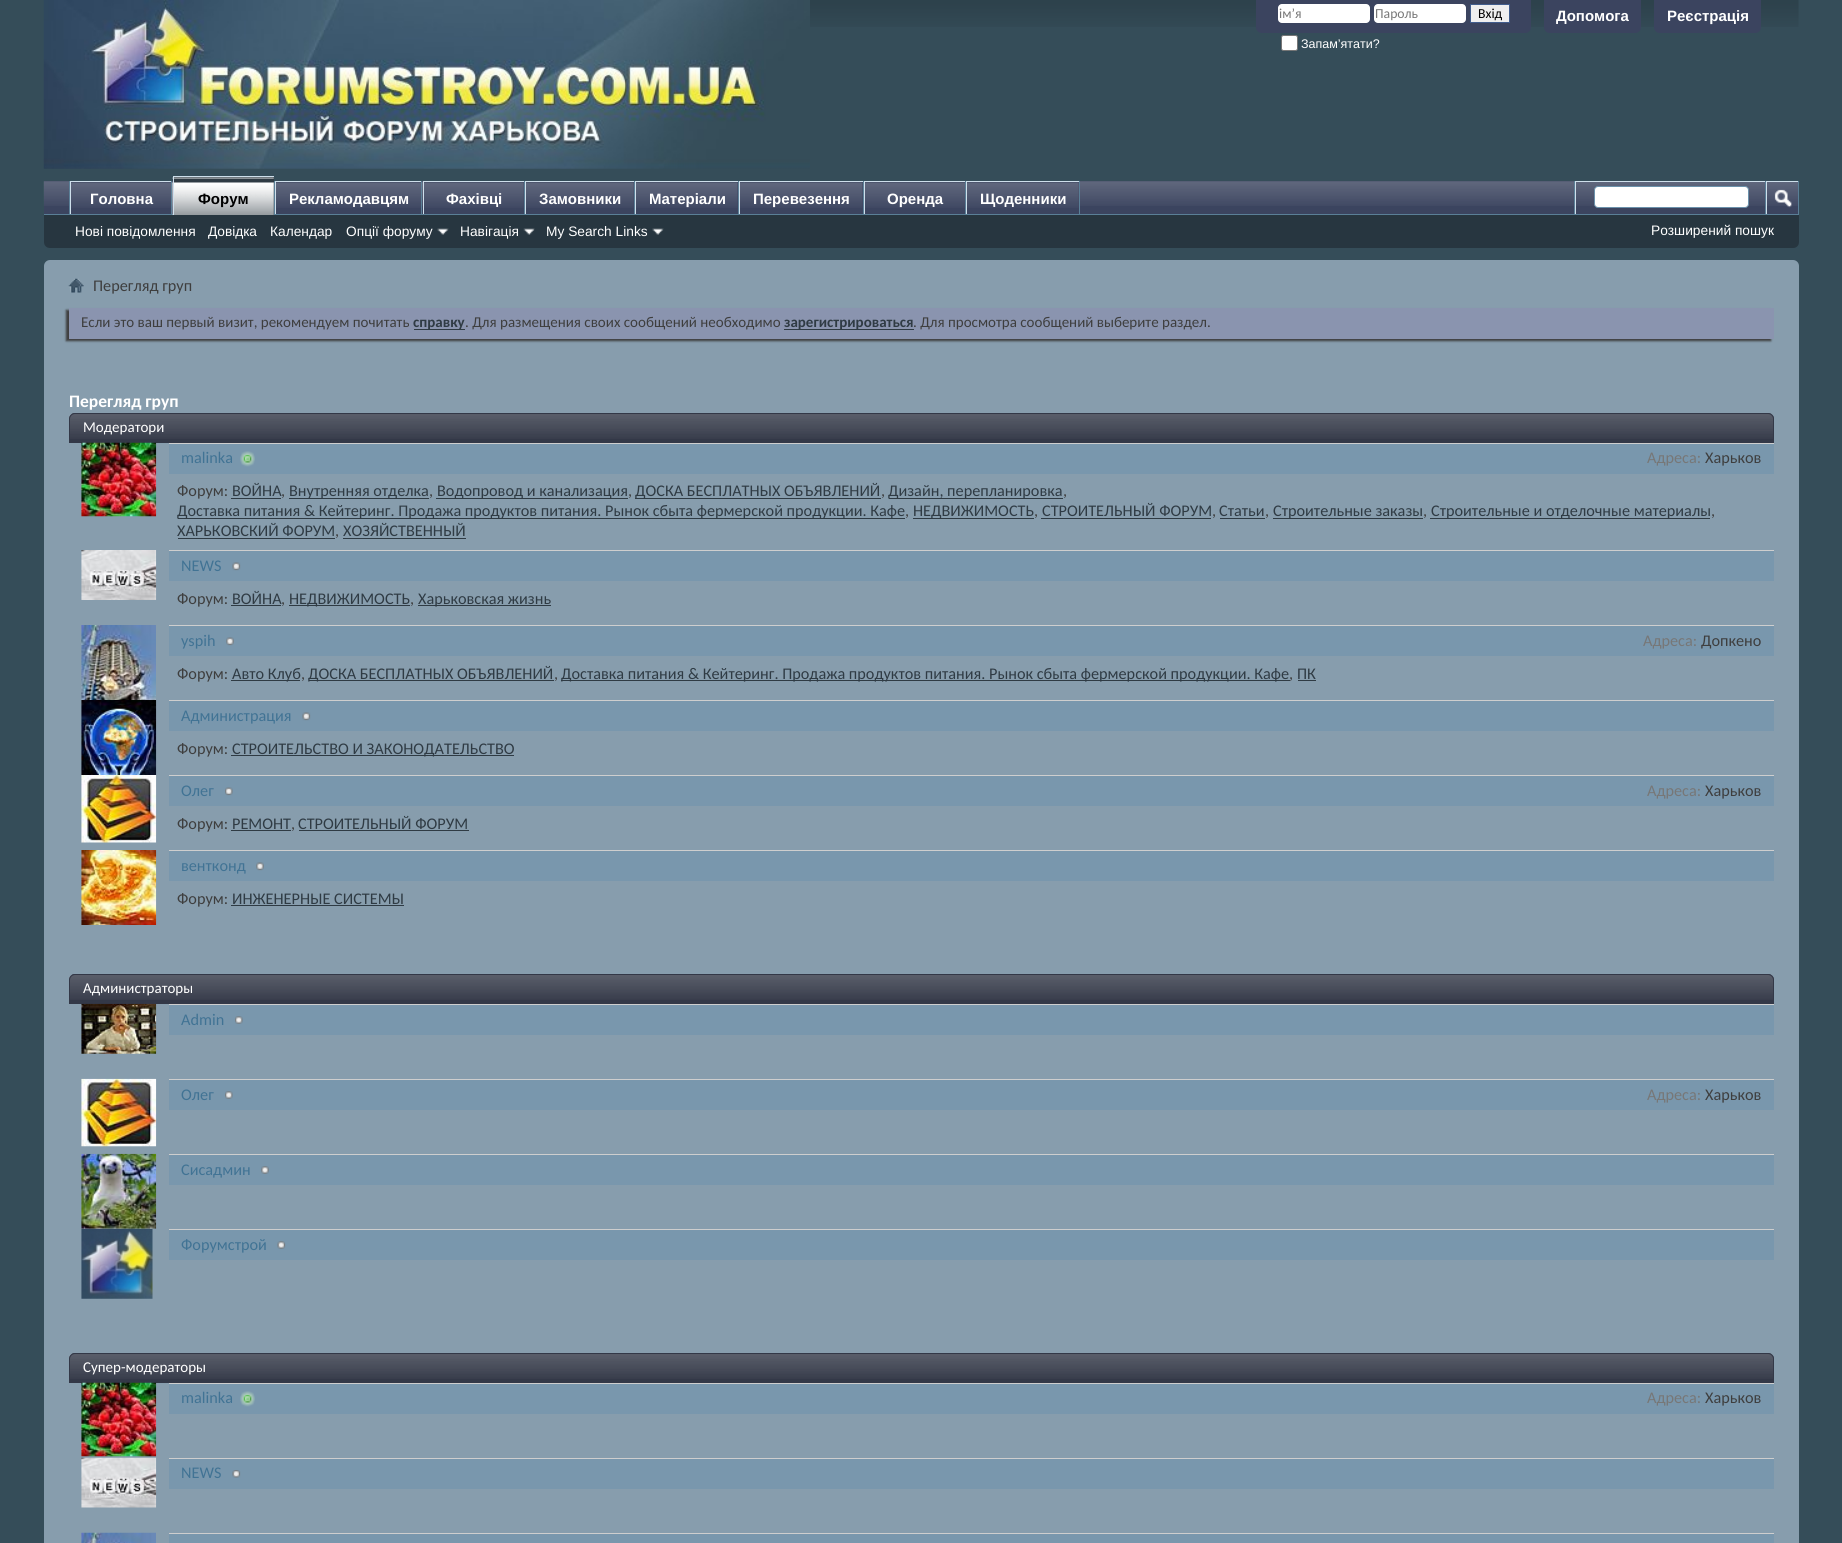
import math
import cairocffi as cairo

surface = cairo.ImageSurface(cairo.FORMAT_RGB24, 1842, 1543)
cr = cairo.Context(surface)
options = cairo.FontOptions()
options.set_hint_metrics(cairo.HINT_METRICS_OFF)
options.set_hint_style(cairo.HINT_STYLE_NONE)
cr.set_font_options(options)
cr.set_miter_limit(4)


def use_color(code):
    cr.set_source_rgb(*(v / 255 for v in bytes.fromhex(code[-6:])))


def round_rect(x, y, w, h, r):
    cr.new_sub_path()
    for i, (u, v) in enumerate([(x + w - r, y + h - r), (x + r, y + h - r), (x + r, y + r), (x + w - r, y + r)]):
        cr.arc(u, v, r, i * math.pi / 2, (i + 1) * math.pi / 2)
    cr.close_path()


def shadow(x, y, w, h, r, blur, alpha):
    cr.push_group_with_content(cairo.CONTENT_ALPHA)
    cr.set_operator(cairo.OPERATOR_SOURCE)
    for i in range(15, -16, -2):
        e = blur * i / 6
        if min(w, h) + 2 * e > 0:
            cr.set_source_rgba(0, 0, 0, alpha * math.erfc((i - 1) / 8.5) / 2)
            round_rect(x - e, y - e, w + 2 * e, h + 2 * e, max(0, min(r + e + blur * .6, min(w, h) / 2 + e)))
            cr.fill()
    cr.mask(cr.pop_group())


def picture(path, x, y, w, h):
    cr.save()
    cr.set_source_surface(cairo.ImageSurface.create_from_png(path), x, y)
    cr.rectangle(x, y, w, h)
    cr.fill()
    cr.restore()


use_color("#354d59")
cr.paint()
picture("img1.png", 810, 0, 989, 27)
picture("img2.png", 43, 0, 767, 169)
use_color("#3b445f")
cr.new_path()
cr.move_to(1256, 0)
cr.line_to(1531, 0)
cr.line_to(1531, 27)
cr.curve_to(1531, 30.5, 1528.5, 33, 1525, 33)
cr.line_to(1262, 33)
cr.curve_to(1258.5, 33, 1256, 30.5, 1256, 27)
cr.close_path()
cr.fill()
use_color("#ffffff")
round_rect(1278, 4, 92, 19, 4)
cr.fill()
cr.select_font_face("Carlito")
cr.set_font_size(13.75)
use_color("#777777")
cr.move_to(1279, 18)
cr.show_text("ім’я")
use_color("#ffffff")
round_rect(1374, 4, 92, 19, 4)
cr.fill()
use_color("#777777")
cr.move_to(1375, 18)
cr.show_text("Пароль")
use_color("#efefef")
cr.rectangle(1470.5, 4.5, 39, 18)
cr.fill_preserve()
use_color("#415d8d")
cr.set_line_width(1)
cr.stroke()
use_color("#000000")
cr.move_to(1478, 18)
cr.show_text("Вхід")
use_color("#ffffff")
round_rect(1281.5, 35.5, 16, 15, 2)
cr.fill_preserve()
use_color("#767676")
cr.stroke()
cr.select_font_face("Liberation Sans")
cr.set_font_size(12.5)
use_color("#ffffff")
cr.move_to(1301, 48)
cr.show_text("Запам’ятати?")
use_color("#3b445f")
cr.new_path()
cr.move_to(1544, 0)
cr.line_to(1641, 0)
cr.line_to(1641, 27)
cr.curve_to(1641, 30.5, 1638.5, 33, 1635, 33)
cr.line_to(1550, 33)
cr.curve_to(1546.5, 33, 1544, 30.5, 1544, 27)
cr.close_path()
cr.fill()
cr.select_font_face("Liberation Sans", cairo.FONT_SLANT_NORMAL, cairo.FONT_WEIGHT_BOLD)
cr.set_font_size(15)
use_color("#ffffff")
cr.move_to(1556, 21)
cr.show_text("Допомога")
use_color("#3b445f")
cr.new_path()
cr.move_to(1654, 0)
cr.line_to(1761, 0)
cr.line_to(1761, 27)
cr.curve_to(1761, 30.5, 1758.5, 33, 1755, 33)
cr.line_to(1660, 33)
cr.curve_to(1656.5, 33, 1654, 30.5, 1654, 27)
cr.close_path()
cr.fill()
use_color("#ffffff")
cr.move_to(1667, 21)
cr.show_text("Реєстрація")
use_color("#273640")
cr.new_path()
cr.move_to(44, 181)
cr.line_to(1799, 181)
cr.line_to(1799, 242)
cr.curve_to(1799, 245.5, 1796.5, 248, 1793, 248)
cr.line_to(50, 248)
cr.curve_to(46.5, 248, 44, 245.5, 44, 242)
cr.close_path()
cr.fill()
use_color("#3b445f")
cr.rectangle(44, 181, 1754, 33)
cr.fill()
picture("img3.png", 43, 181, 1755, 25)
use_color("#5a7f97")
cr.rectangle(274, 181, 1, 33)
cr.fill()
cr.rectangle(171, 181, 1, 34)
cr.fill()
cr.rectangle(69, 181, 1, 34)
cr.fill()
use_color("#cedfeb")
cr.rectangle(70, 181, 101, 1)
cr.fill()
cr.rectangle(70, 181, 1, 34)
cr.fill()
use_color("#5a7f97")
cr.rectangle(421, 181, 1, 34)
cr.fill()
use_color("#cedfeb")
cr.rectangle(275, 181, 146, 1)
cr.fill()
cr.rectangle(275, 181, 1, 34)
cr.fill()
use_color("#5a7f97")
cr.rectangle(524, 181, 1, 34)
cr.fill()
use_color("#3b445f")
cr.rectangle(424, 182, 100, 24)
cr.fill()
picture("img9.png", 422, 182, 102, 26)
use_color("#cedfeb")
cr.rectangle(423, 181, 101, 1)
cr.fill()
cr.rectangle(423, 181, 1, 34)
cr.fill()
use_color("#5a7f97")
cr.rectangle(634, 181, 1, 34)
cr.fill()
use_color("#cedfeb")
cr.rectangle(525, 181, 109, 1)
cr.fill()
cr.rectangle(525, 181, 1, 34)
cr.fill()
use_color("#5a7f97")
cr.rectangle(738, 181, 1, 34)
cr.fill()
use_color("#cedfeb")
cr.rectangle(635, 181, 103, 1)
cr.fill()
cr.rectangle(635, 181, 1, 34)
cr.fill()
use_color("#5a7f97")
cr.rectangle(863, 181, 1, 34)
cr.fill()
use_color("#3b445f")
cr.rectangle(740, 182, 123, 24)
cr.fill()
picture("img12.png", 738, 182, 125, 26)
use_color("#cedfeb")
cr.rectangle(739, 181, 124, 1)
cr.fill()
cr.rectangle(739, 181, 1, 34)
cr.fill()
use_color("#5a7f97")
cr.rectangle(965, 181, 1, 34)
cr.fill()
use_color("#3b445f")
cr.rectangle(865, 182, 100, 24)
cr.fill()
picture("img13.png", 863, 182, 102, 26)
use_color("#cedfeb")
cr.rectangle(864, 181, 101, 1)
cr.fill()
cr.rectangle(864, 181, 1, 34)
cr.fill()
use_color("#5a7f97")
cr.rectangle(1079, 181, 1, 34)
cr.fill()
use_color("#cedfeb")
cr.rectangle(966, 181, 113, 1)
cr.fill()
cr.rectangle(966, 181, 1, 34)
cr.fill()
use_color("#5a7f97")
cr.rectangle(44, 214, 1755, 1)
cr.fill()
use_color("#2f3b44")
cr.rectangle(174, 177, 100, 38)
cr.fill()
picture("img4.png", 172, 177, 102, 38)
use_color("#cedfeb")
cr.rectangle(173, 176, 101, 1)
cr.fill()
cr.rectangle(173, 176, 1, 39)
cr.fill()
use_color("#000000")
cr.move_to(198, 204)
cr.show_text("Форум")
cr.select_font_face("Liberation Sans")
cr.set_font_size(13.75)
use_color("#ffffff")
cr.move_to(75, 236)
cr.show_text("Нові повідомлення")
cr.move_to(208, 236)
cr.show_text("Довідка")
cr.move_to(270, 236)
cr.show_text("Календар")
cr.move_to(346, 236)
cr.show_text("Опції форуму")
picture("img5.png", 437, 228, 12, 7)
cr.move_to(460, 236)
cr.show_text("Навігація")
picture("img6.png", 523, 228, 12, 7)
cr.move_to(546, 236)
cr.show_text("My Search Links")
picture("img5.png", 652, 228, 12, 7)
use_color("#3b445f")
cr.rectangle(71, 182, 100, 24)
cr.fill()
picture("img7.png", 71, 182, 101, 26)
cr.select_font_face("Liberation Sans", cairo.FONT_SLANT_NORMAL, cairo.FONT_WEIGHT_BOLD)
cr.set_font_size(15)
use_color("#ffffff")
cr.move_to(90, 204)
cr.show_text("Головна")
use_color("#3b445f")
cr.rectangle(276, 182, 145, 24)
cr.fill()
picture("img8.png", 276, 182, 146, 26)
use_color("#ffffff")
cr.move_to(289, 204)
cr.show_text("Рекламодавцям")
cr.move_to(446, 204)
cr.show_text("Фахівці")
use_color("#3b445f")
cr.rectangle(526, 182, 108, 24)
cr.fill()
picture("img10.png", 526, 182, 108, 26)
use_color("#ffffff")
cr.move_to(539, 204)
cr.show_text("Замовники")
use_color("#3b445f")
cr.rectangle(636, 182, 102, 24)
cr.fill()
picture("img11.png", 636, 182, 102, 26)
use_color("#ffffff")
cr.move_to(649, 204)
cr.show_text("Матеріали")
cr.move_to(753, 204)
cr.show_text("Перевезення")
cr.move_to(887, 204)
cr.show_text("Оренда")
use_color("#3b445f")
cr.rectangle(967, 182, 112, 24)
cr.fill()
picture("img14.png", 967, 182, 112, 26)
use_color("#ffffff")
cr.move_to(980, 204)
cr.show_text("Щоденники")
use_color("#5a7f97")
cr.rectangle(1574, 181, 1, 33)
cr.fill()
use_color("#cedfeb")
cr.rectangle(1575, 181, 190, 1)
cr.fill()
cr.rectangle(1575, 181, 1, 33)
cr.fill()
use_color("#ffffff")
round_rect(1594.5, 186.5, 154, 21, 3.5)
cr.fill_preserve()
use_color("#6b91ab")
cr.stroke()
use_color("#5a7f97")
cr.rectangle(1798, 181, 1, 33)
cr.fill()
cr.rectangle(1765, 181, 1, 33)
cr.fill()
use_color("#cedfeb")
cr.rectangle(1766, 181, 32, 1)
cr.fill()
cr.rectangle(1766, 181, 1, 33)
cr.fill()
picture("img15.png", 1774, 189, 18, 19)
cr.select_font_face("Liberation Sans")
cr.set_font_size(13.75)
use_color("#ffffff")
cr.move_to(1651, 235)
cr.show_text("Розширений пошук")
use_color("#879dad")
round_rect(44, 260, 1755, 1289, 6)
cr.fill()
picture("img16.png", 68, 278, 16, 15)
cr.select_font_face("Carlito")
cr.set_font_size(16.25)
use_color("#3e3e3e")
cr.move_to(93, 291)
cr.show_text("Перегляд груп")
use_color("#3e3e3e")
shadow(66, 310, 1705, 31, 0, 1, 1)
use_color("#8a94af")
cr.rectangle(69, 308, 1705, 31)
cr.fill()
cr.set_font_size(15)
use_color("#3e3e3e")
cr.move_to(81, 327)
cr.show_text("Если это ваш первый визит, рекомендуем почитать")
use_color("#2f3b44")
cr.rectangle(414, 329, 51, 1)
cr.fill()
cr.select_font_face("Carlito", cairo.FONT_SLANT_NORMAL, cairo.FONT_WEIGHT_BOLD)
cr.move_to(413, 327)
cr.show_text("справку")
cr.select_font_face("Carlito")
use_color("#3e3e3e")
cr.move_to(465, 327)
cr.show_text(". Для размещения своих сообщений необходимо")
use_color("#2f3b44")
cr.rectangle(784, 329, 130, 1)
cr.fill()
cr.select_font_face("Carlito", cairo.FONT_SLANT_NORMAL, cairo.FONT_WEIGHT_BOLD)
cr.move_to(784, 327)
cr.show_text("зарегистрироваться")
cr.select_font_face("Carlito")
use_color("#3e3e3e")
cr.move_to(913, 327)
cr.show_text(". Для просмотра сообщений выберите раздел.")
cr.select_font_face("Carlito", cairo.FONT_SLANT_NORMAL, cairo.FONT_WEIGHT_BOLD)
cr.set_font_size(17.5)
use_color("#ffffff")
cr.move_to(69, 407)
cr.show_text("Перегляд груп")
use_color("#333847")
cr.new_path()
cr.move_to(75, 413)
cr.line_to(1768, 413)
cr.curve_to(1771.5, 413, 1774, 415.5, 1774, 419)
cr.line_to(1774, 443)
cr.line_to(69, 443)
cr.line_to(69, 419)
cr.curve_to(69, 415.5, 71.5, 413, 75, 413)
cr.close_path()
cr.fill()
picture("img17.png", 69, 413, 1705, 26)
cr.new_path()
cr.move_to(75, 413.5)
cr.line_to(1768, 413.5)
cr.curve_to(1771, 413.5, 1773.5, 416, 1773.5, 419)
cr.line_to(1773.5, 442.5)
cr.line_to(69.5, 442.5)
cr.line_to(69.5, 419)
cr.curve_to(69.5, 416, 72, 413.5, 75, 413.5)
cr.close_path()
cr.stroke()
cr.select_font_face("Carlito")
cr.set_font_size(15)
use_color("#ffffff")
cr.move_to(83, 432)
cr.show_text("Модератори")
picture("img18.png", 81, 442, 76, 75)
use_color("#7997ad")
cr.rectangle(169, 444, 1605, 30)
cr.fill()
use_color("#cecece")
cr.rectangle(169, 443, 1605, 1)
cr.fill()
cr.set_font_size(16.25)
use_color("#417394")
cr.move_to(181, 463)
cr.show_text("malinka")
picture("img19.png", 240, 451, 15, 16)
use_color("#777777")
cr.move_to(1647, 463)
cr.show_text("Адреса:")
use_color("#3e3e3e")
cr.move_to(1705, 463)
cr.show_text("Харьков")
cr.move_to(177, 496)
cr.show_text("Форум:")
use_color("#2f3b44")
cr.move_to(232, 496)
cr.show_text("ВОЙНА")
cr.rectangle(231, 498, 50, 1)
cr.fill()
use_color("#3e3e3e")
cr.move_to(281, 496)
cr.show_text(",")
use_color("#2f3b44")
cr.rectangle(289, 498, 140, 1)
cr.fill()
cr.move_to(289, 496)
cr.show_text("Внутренняя отделка")
use_color("#3e3e3e")
cr.move_to(429, 496)
cr.show_text(",")
use_color("#2f3b44")
cr.rectangle(436, 498, 192, 1)
cr.fill()
cr.move_to(437, 496)
cr.show_text("Водопровод и канализация")
use_color("#3e3e3e")
cr.move_to(628, 496)
cr.show_text(",")
use_color("#2f3b44")
cr.rectangle(635, 498, 246, 1)
cr.fill()
cr.move_to(635, 496)
cr.show_text("ДОСКА БЕСПЛАТНЫХ ОБЪЯВЛЕНИЙ")
use_color("#3e3e3e")
cr.move_to(881, 496)
cr.show_text(",")
use_color("#2f3b44")
cr.rectangle(889, 498, 174, 1)
cr.fill()
cr.move_to(888, 496)
cr.show_text("Дизайн, перепланировка")
use_color("#3e3e3e")
cr.move_to(1063, 496)
cr.show_text(",")
use_color("#2f3b44")
cr.rectangle(178, 518, 727, 1)
cr.fill()
cr.move_to(177, 516)
cr.show_text("Доставка питания & Кейтеринг. Продажа продуктов питания. Рынок сбыта фермерской продукции. Кафе")
use_color("#3e3e3e")
cr.move_to(905, 516)
cr.show_text(",")
use_color("#2f3b44")
cr.rectangle(913, 518, 121, 1)
cr.fill()
cr.move_to(913, 516)
cr.show_text("НЕДВИЖИМОСТЬ")
use_color("#3e3e3e")
cr.move_to(1034, 516)
cr.show_text(",")
use_color("#2f3b44")
cr.move_to(1042, 516)
cr.show_text("СТРОИТЕЛЬНЫЙ ФОРУМ")
cr.rectangle(1041, 518, 170, 1)
cr.fill()
use_color("#3e3e3e")
cr.move_to(1212, 516)
cr.show_text(",")
use_color("#2f3b44")
cr.move_to(1219, 516)
cr.show_text("Статьи")
cr.rectangle(1220, 518, 45, 1)
cr.fill()
use_color("#3e3e3e")
cr.move_to(1265, 516)
cr.show_text(",")
use_color("#2f3b44")
cr.rectangle(1273, 518, 150, 1)
cr.fill()
cr.move_to(1273, 516)
cr.show_text("Строительные заказы")
use_color("#3e3e3e")
cr.move_to(1423, 516)
cr.show_text(",")
use_color("#2f3b44")
cr.rectangle(1430, 518, 280, 1)
cr.fill()
cr.move_to(1431, 516)
cr.show_text("Строительные и отделочные материалы")
use_color("#3e3e3e")
cr.move_to(1711, 516)
cr.show_text(",")
use_color("#2f3b44")
cr.move_to(177, 536)
cr.show_text("ХАРЬКОВСКИЙ ФОРУМ")
cr.rectangle(178, 538, 157, 1)
cr.fill()
use_color("#3e3e3e")
cr.move_to(335, 536)
cr.show_text(",")
use_color("#2f3b44")
cr.move_to(343, 536)
cr.show_text("ХОЗЯЙСТВЕННЫЙ")
cr.rectangle(343, 538, 123, 1)
cr.fill()
picture("img20.png", 81, 550, 76, 50)
use_color("#7997ad")
cr.rectangle(169, 551, 1605, 30)
cr.fill()
use_color("#cecece")
cr.rectangle(169, 550, 1605, 1)
cr.fill()
use_color("#417394")
cr.move_to(181, 571)
cr.show_text("NEWS")
picture("img21.png", 232, 562, 9, 9)
use_color("#3e3e3e")
cr.move_to(177, 604)
cr.show_text("Форум:")
use_color("#2f3b44")
cr.move_to(232, 604)
cr.show_text("ВОЙНА")
cr.rectangle(231, 605, 50, 1)
cr.fill()
use_color("#3e3e3e")
cr.move_to(281, 604)
cr.show_text(",")
use_color("#2f3b44")
cr.rectangle(289, 605, 121, 1)
cr.fill()
cr.move_to(289, 604)
cr.show_text("НЕДВИЖИМОСТЬ")
use_color("#3e3e3e")
cr.move_to(410, 604)
cr.show_text(",")
use_color("#2f3b44")
cr.rectangle(418, 605, 133, 1)
cr.fill()
cr.move_to(418, 604)
cr.show_text("Харьковская жизнь")
picture("img22.png", 81, 625, 75, 75)
use_color("#7997ad")
cr.rectangle(169, 626, 1605, 30)
cr.fill()
use_color("#cecece")
cr.rectangle(169, 625, 1605, 1)
cr.fill()
use_color("#417394")
cr.move_to(181, 646)
cr.show_text("yspih")
picture("img23.png", 226, 637, 8, 9)
use_color("#777777")
cr.move_to(1643, 646)
cr.show_text("Адреса:")
use_color("#3e3e3e")
cr.move_to(1701, 646)
cr.show_text("Допкено")
cr.move_to(177, 679)
cr.show_text("Форум:")
use_color("#2f3b44")
cr.rectangle(231, 680, 69, 1)
cr.fill()
cr.move_to(232, 679)
cr.show_text("Авто Клуб")
use_color("#3e3e3e")
cr.move_to(301, 679)
cr.show_text(",")
use_color("#2f3b44")
cr.rectangle(309, 680, 245, 1)
cr.fill()
cr.move_to(308, 679)
cr.show_text("ДОСКА БЕСПЛАТНЫХ ОБЪЯВЛЕНИЙ")
use_color("#3e3e3e")
cr.move_to(554, 679)
cr.show_text(",")
use_color("#2f3b44")
cr.rectangle(561, 680, 729, 1)
cr.fill()
cr.move_to(561, 679)
cr.show_text("Доставка питания & Кейтеринг. Продажа продуктов питания. Рынок сбыта фермерской продукции. Кафе")
use_color("#3e3e3e")
cr.move_to(1289, 679)
cr.show_text(",")
use_color("#2f3b44")
cr.move_to(1297, 679)
cr.show_text("ПК")
cr.rectangle(1298, 680, 18, 1)
cr.fill()
picture("img24.png", 81, 700, 76, 75)
use_color("#7997ad")
cr.rectangle(169, 701, 1605, 30)
cr.fill()
use_color("#cecece")
cr.rectangle(169, 700, 1605, 1)
cr.fill()
use_color("#417394")
cr.move_to(181, 721)
cr.show_text("Администрация")
picture("img21.png", 302, 712, 9, 9)
use_color("#3e3e3e")
cr.move_to(177, 754)
cr.show_text("Форум:")
use_color("#2f3b44")
cr.rectangle(231, 755, 283, 1)
cr.fill()
cr.move_to(232, 754)
cr.show_text("СТРОИТЕЛЬСТВО И ЗАКОНОДАТЕЛЬСТВО")
picture("img25.png", 81, 775, 76, 68)
use_color("#7997ad")
cr.rectangle(169, 776, 1605, 30)
cr.fill()
use_color("#cecece")
cr.rectangle(169, 775, 1605, 1)
cr.fill()
use_color("#417394")
cr.move_to(181, 796)
cr.show_text("Олег")
picture("img26.png", 225, 787, 8, 9)
use_color("#777777")
cr.move_to(1647, 796)
cr.show_text("Адреса:")
use_color("#3e3e3e")
cr.move_to(1705, 796)
cr.show_text("Харьков")
cr.move_to(177, 829)
cr.show_text("Форум:")
use_color("#2f3b44")
cr.move_to(232, 829)
cr.show_text("РЕМОНТ")
cr.rectangle(231, 830, 60, 1)
cr.fill()
use_color("#3e3e3e")
cr.move_to(291, 829)
cr.show_text(",")
use_color("#2f3b44")
cr.move_to(298, 829)
cr.show_text("СТРОИТЕЛЬНЫЙ ФОРУМ")
cr.rectangle(299, 830, 170, 1)
cr.fill()
picture("img27.png", 81, 850, 76, 75)
use_color("#7997ad")
cr.rectangle(169, 851, 1605, 30)
cr.fill()
use_color("#cecece")
cr.rectangle(169, 850, 1605, 1)
cr.fill()
use_color("#417394")
cr.move_to(181, 871)
cr.show_text("вентконд")
picture("img23.png", 256, 862, 8, 9)
use_color("#3e3e3e")
cr.move_to(177, 904)
cr.show_text("Форум:")
use_color("#2f3b44")
cr.move_to(232, 904)
cr.show_text("ИНЖЕНЕРНЫЕ СИСТЕМЫ")
cr.rectangle(231, 905, 173, 1)
cr.fill()
use_color("#333847")
cr.new_path()
cr.move_to(75, 974)
cr.line_to(1768, 974)
cr.curve_to(1771.5, 974, 1774, 976.5, 1774, 980)
cr.line_to(1774, 1004)
cr.line_to(69, 1004)
cr.line_to(69, 980)
cr.curve_to(69, 976.5, 71.5, 974, 75, 974)
cr.close_path()
cr.fill()
picture("img28.png", 69, 975, 1705, 25)
cr.new_path()
cr.move_to(75, 974.5)
cr.line_to(1768, 974.5)
cr.curve_to(1771, 974.5, 1773.5, 977, 1773.5, 980)
cr.line_to(1773.5, 1003.5)
cr.line_to(69.5, 1003.5)
cr.line_to(69.5, 980)
cr.curve_to(69.5, 977, 72, 974.5, 75, 974.5)
cr.close_path()
cr.stroke()
cr.set_font_size(15)
use_color("#ffffff")
cr.move_to(83, 993)
cr.show_text("Администраторы")
picture("img29.png", 81, 1003, 76, 51)
use_color("#7997ad")
cr.rectangle(169, 1005, 1605, 30)
cr.fill()
use_color("#cecece")
cr.rectangle(169, 1004, 1605, 1)
cr.fill()
cr.set_font_size(16.25)
use_color("#417394")
cr.move_to(181, 1025)
cr.show_text("Admin")
picture("img30.png", 235, 1016, 8, 8)
picture("img31.png", 81, 1078, 76, 69)
use_color("#7997ad")
cr.rectangle(169, 1080, 1605, 30)
cr.fill()
use_color("#cecece")
cr.rectangle(169, 1079, 1605, 1)
cr.fill()
use_color("#417394")
cr.move_to(181, 1100)
cr.show_text("Олег")
picture("img30.png", 225, 1091, 8, 8)
use_color("#777777")
cr.move_to(1647, 1100)
cr.show_text("Адреса:")
use_color("#3e3e3e")
cr.move_to(1705, 1100)
cr.show_text("Харьков")
picture("img32.png", 81, 1153, 76, 76)
use_color("#7997ad")
cr.rectangle(169, 1155, 1605, 30)
cr.fill()
use_color("#cecece")
cr.rectangle(169, 1154, 1605, 1)
cr.fill()
use_color("#417394")
cr.move_to(181, 1175)
cr.show_text("Сисадмин")
picture("img33.png", 261, 1166, 8, 8)
picture("img34.png", 81, 1228, 72, 71)
use_color("#7997ad")
cr.rectangle(169, 1230, 1605, 30)
cr.fill()
use_color("#cecece")
cr.rectangle(169, 1229, 1605, 1)
cr.fill()
use_color("#417394")
cr.move_to(181, 1250)
cr.show_text("Форумстрой")
picture("img35.png", 277, 1241, 9, 8)
use_color("#333847")
cr.new_path()
cr.move_to(75, 1353)
cr.line_to(1768, 1353)
cr.curve_to(1771.5, 1353, 1774, 1355.5, 1774, 1359)
cr.line_to(1774, 1383)
cr.line_to(69, 1383)
cr.line_to(69, 1359)
cr.curve_to(69, 1355.5, 71.5, 1353, 75, 1353)
cr.close_path()
cr.fill()
picture("img17.png", 69, 1353, 1705, 26)
cr.new_path()
cr.move_to(75, 1353.5)
cr.line_to(1768, 1353.5)
cr.curve_to(1771, 1353.5, 1773.5, 1356, 1773.5, 1359)
cr.line_to(1773.5, 1382.5)
cr.line_to(69.5, 1382.5)
cr.line_to(69.5, 1359)
cr.curve_to(69.5, 1356, 72, 1353.5, 75, 1353.5)
cr.close_path()
cr.stroke()
cr.set_font_size(15)
use_color("#ffffff")
cr.move_to(83, 1372)
cr.show_text("Супер-модераторы")
picture("img18.png", 81, 1382, 76, 75)
use_color("#7997ad")
cr.rectangle(169, 1384, 1605, 30)
cr.fill()
use_color("#cecece")
cr.rectangle(169, 1383, 1605, 1)
cr.fill()
cr.set_font_size(16.25)
use_color("#417394")
cr.move_to(181, 1403)
cr.show_text("malinka")
picture("img19.png", 240, 1391, 15, 16)
use_color("#777777")
cr.move_to(1647, 1403)
cr.show_text("Адреса:")
use_color("#3e3e3e")
cr.move_to(1705, 1403)
cr.show_text("Харьков")
picture("img36.png", 81, 1457, 76, 51)
use_color("#7997ad")
cr.rectangle(169, 1459, 1605, 30)
cr.fill()
use_color("#cecece")
cr.rectangle(169, 1458, 1605, 1)
cr.fill()
use_color("#417394")
cr.move_to(181, 1478)
cr.show_text("NEWS")
picture("img37.png", 232, 1470, 9, 8)
picture("img38.png", 81, 1532, 75, 11)
use_color("#7997ad")
cr.rectangle(169, 1534, 1605, 9)
cr.fill()
use_color("#cecece")
cr.rectangle(169, 1533, 1605, 1)
cr.fill()
surface.write_to_png("result.png")
